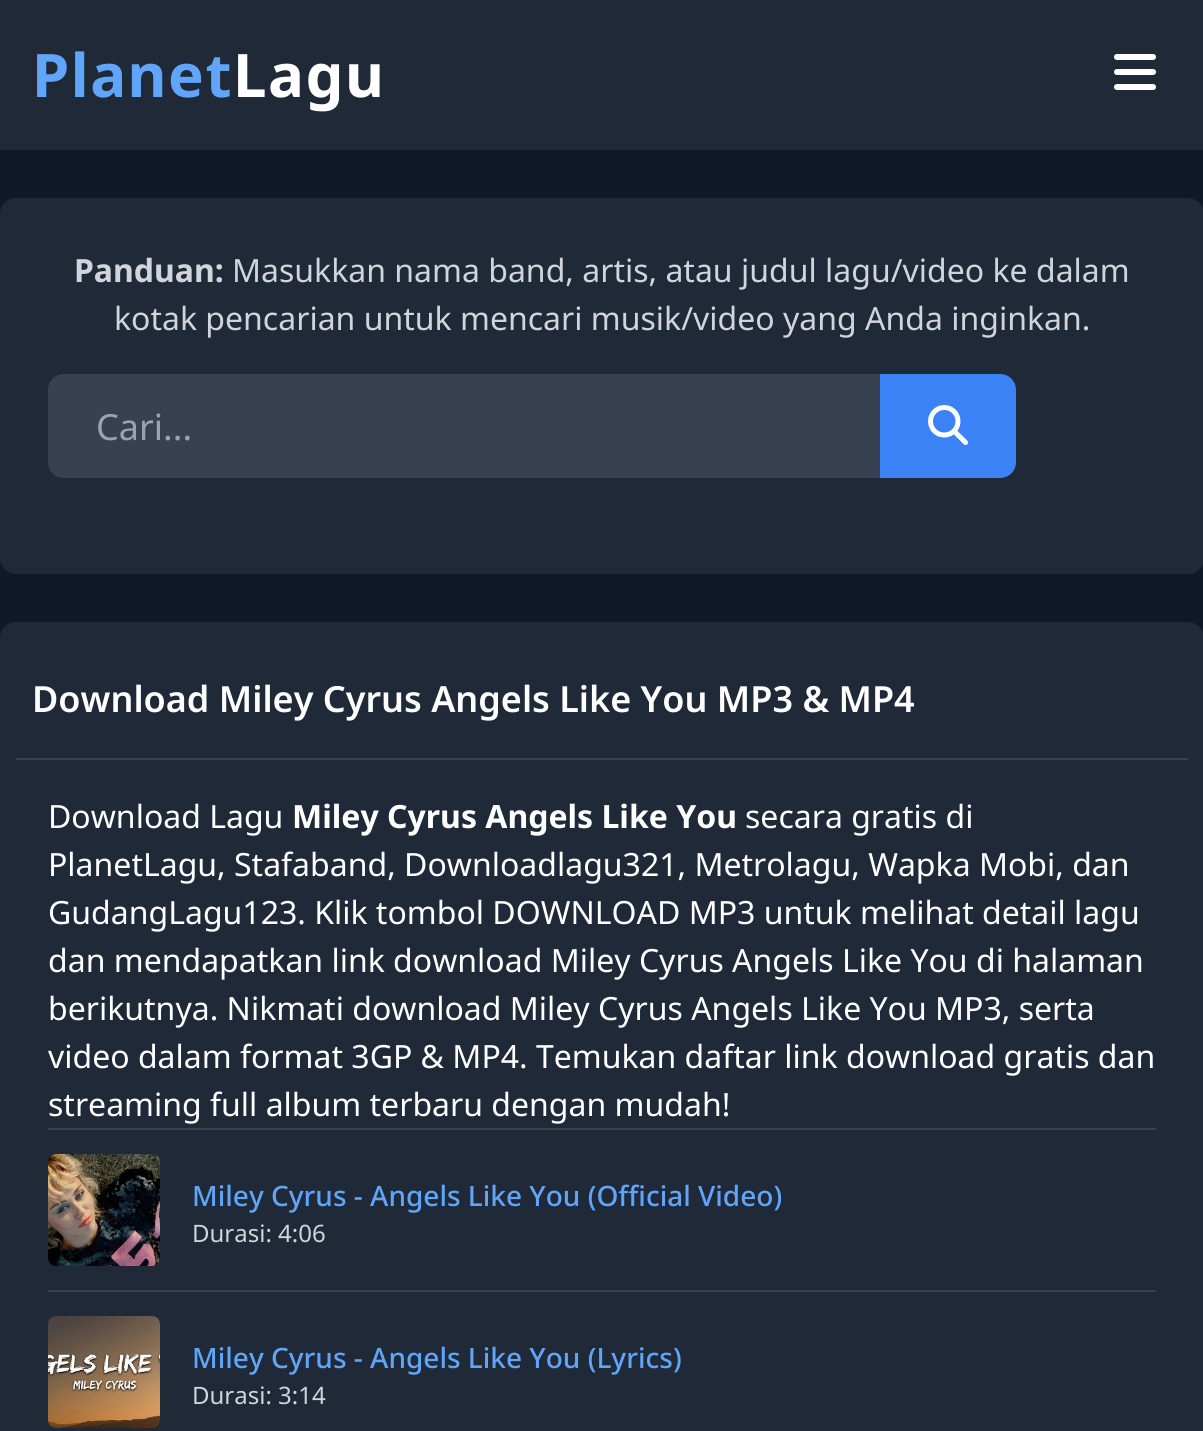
import math
import cairocffi as cairo

surface = cairo.ImageSurface(cairo.FORMAT_RGB24, 1203, 1431)
cr = cairo.Context(surface)
options = cairo.FontOptions()
options.set_hint_metrics(cairo.HINT_METRICS_OFF)
options.set_hint_style(cairo.HINT_STYLE_NONE)
cr.set_font_options(options)
cr.set_miter_limit(4)


def use_color(code):
    cr.set_source_rgb(*(v / 255 for v in bytes.fromhex(code[-6:])))


def spaced_text(x, y, s, letter, word):
    cr.move_to(x, y)
    for ch in s:
        cr.show_text(ch)
        cr.rel_move_to(letter + word * (ch == ' '), 0)


def round_rect(x, y, w, h, r):
    cr.new_sub_path()
    for i, (u, v) in enumerate([(x + w - r, y + h - r), (x + r, y + h - r), (x + r, y + r), (x + w - r, y + r)]):
        cr.arc(u, v, r, i * math.pi / 2, (i + 1) * math.pi / 2)
    cr.close_path()


def picture(path, x, y, w, h):
    cr.save()
    cr.set_source_surface(cairo.ImageSurface.create_from_png(path), x, y)
    cr.rectangle(x, y, w, h)
    cr.fill()
    cr.restore()


use_color("#111827")
cr.paint()
use_color("#1f2937")
cr.rectangle(0, 0, 1203, 150)
cr.fill()
cr.select_font_face("Noto Sans", cairo.FONT_SLANT_NORMAL, cairo.FONT_WEIGHT_BOLD)
cr.set_font_size(60)
use_color("#60a5fa")
spaced_text(32, 97, "Planet", 1.5, 0)
use_color("#ffffff")
spaced_text(233, 97, "Lagu", 1.5, 0)
picture("img1.png", 1114, 54, 42, 36)
use_color("#1f2937")
round_rect(0, 198, 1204, 376, 16)
cr.fill()
cr.set_font_size(32)
use_color("#d1d5db")
cr.move_to(74, 282)
cr.show_text("Panduan:")
cr.select_font_face("Noto Sans")
cr.move_to(232, 282)
cr.show_text("Masukkan nama band, artis, atau judul lagu/video ke dalam")
cr.move_to(114, 330)
cr.show_text("kotak pencarian untuk mencari musik/video yang Anda inginkan.")
use_color("#374151")
cr.new_path()
cr.move_to(64, 374)
cr.line_to(880, 374)
cr.line_to(880, 478)
cr.line_to(64, 478)
cr.curve_to(55, 478, 48, 471, 48, 462)
cr.line_to(48, 390)
cr.curve_to(48, 381, 55, 374, 64, 374)
cr.close_path()
cr.fill()
cr.set_font_size(36)
use_color("#9ca3af")
cr.move_to(96, 440)
cr.show_text("Cari...")
use_color("#3b82f6")
cr.new_path()
cr.move_to(880, 374)
cr.line_to(1000, 374)
cr.curve_to(1009, 374, 1016, 381, 1016, 390)
cr.line_to(1016, 462)
cr.curve_to(1016, 471, 1009, 478, 1000, 478)
cr.line_to(880, 478)
cr.close_path()
cr.fill()
picture("img2.png", 928, 405, 40, 40)
use_color("#1f2937")
round_rect(0, 622, 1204, 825, 16)
cr.fill()
cr.select_font_face("Noto Sans SemiBold")
use_color("#ffffff")
cr.move_to(32, 712)
cr.show_text("Download Miley Cyrus Angels Like You MP3 & MP4")
use_color("#374151")
cr.rectangle(16, 758, 1172, 2)
cr.fill()
cr.select_font_face("Noto Sans")
cr.set_font_size(32)
use_color("#ffffff")
cr.move_to(48, 828)
cr.show_text("Download Lagu")
cr.select_font_face("Noto Sans", cairo.FONT_SLANT_NORMAL, cairo.FONT_WEIGHT_BOLD)
cr.move_to(292, 828)
cr.show_text("Miley Cyrus Angels Like You")
cr.select_font_face("Noto Sans")
cr.move_to(745, 828)
cr.show_text("secara gratis di")
cr.move_to(48, 876)
cr.show_text("PlanetLagu, Stafaband, Downloadlagu321, Metrolagu, Wapka Mobi, dan")
cr.move_to(48, 924)
cr.show_text("GudangLagu123. Klik tombol DOWNLOAD MP3 untuk melihat detail lagu")
cr.move_to(48, 972)
cr.show_text("dan mendapatkan link download Miley Cyrus Angels Like You di halaman")
cr.move_to(48, 1020)
cr.show_text("berikutnya. Nikmati download Miley Cyrus Angels Like You MP3, serta")
cr.move_to(48, 1068)
cr.show_text("video dalam format 3GP & MP4. Temukan daftar link download gratis dan")
cr.move_to(48, 1116)
cr.show_text("streaming full album terbaru dengan mudah!")
use_color("#374151")
cr.rectangle(48, 1128, 1108, 2)
cr.fill()
picture("img3.png", 48, 1154, 112, 112)
cr.select_font_face("Noto Sans Medium")
cr.set_font_size(28)
use_color("#60a5fa")
cr.move_to(192, 1206)
cr.show_text("Miley Cyrus - Angels Like You (Official Video)")
cr.select_font_face("Noto Sans")
cr.set_font_size(24)
use_color("#d1d5db")
cr.move_to(192, 1242)
cr.show_text("Durasi: 4:06")
use_color("#374151")
cr.rectangle(48, 1290, 1108, 2)
cr.fill()
picture("img4.png", 48, 1316, 112, 112)
cr.select_font_face("Noto Sans Medium")
cr.set_font_size(28)
use_color("#60a5fa")
cr.move_to(192, 1368)
cr.show_text("Miley Cyrus - Angels Like You (Lyrics)")
cr.select_font_face("Noto Sans")
cr.set_font_size(24)
use_color("#d1d5db")
cr.move_to(192, 1404)
cr.show_text("Durasi: 3:14")
surface.write_to_png("result.png")
